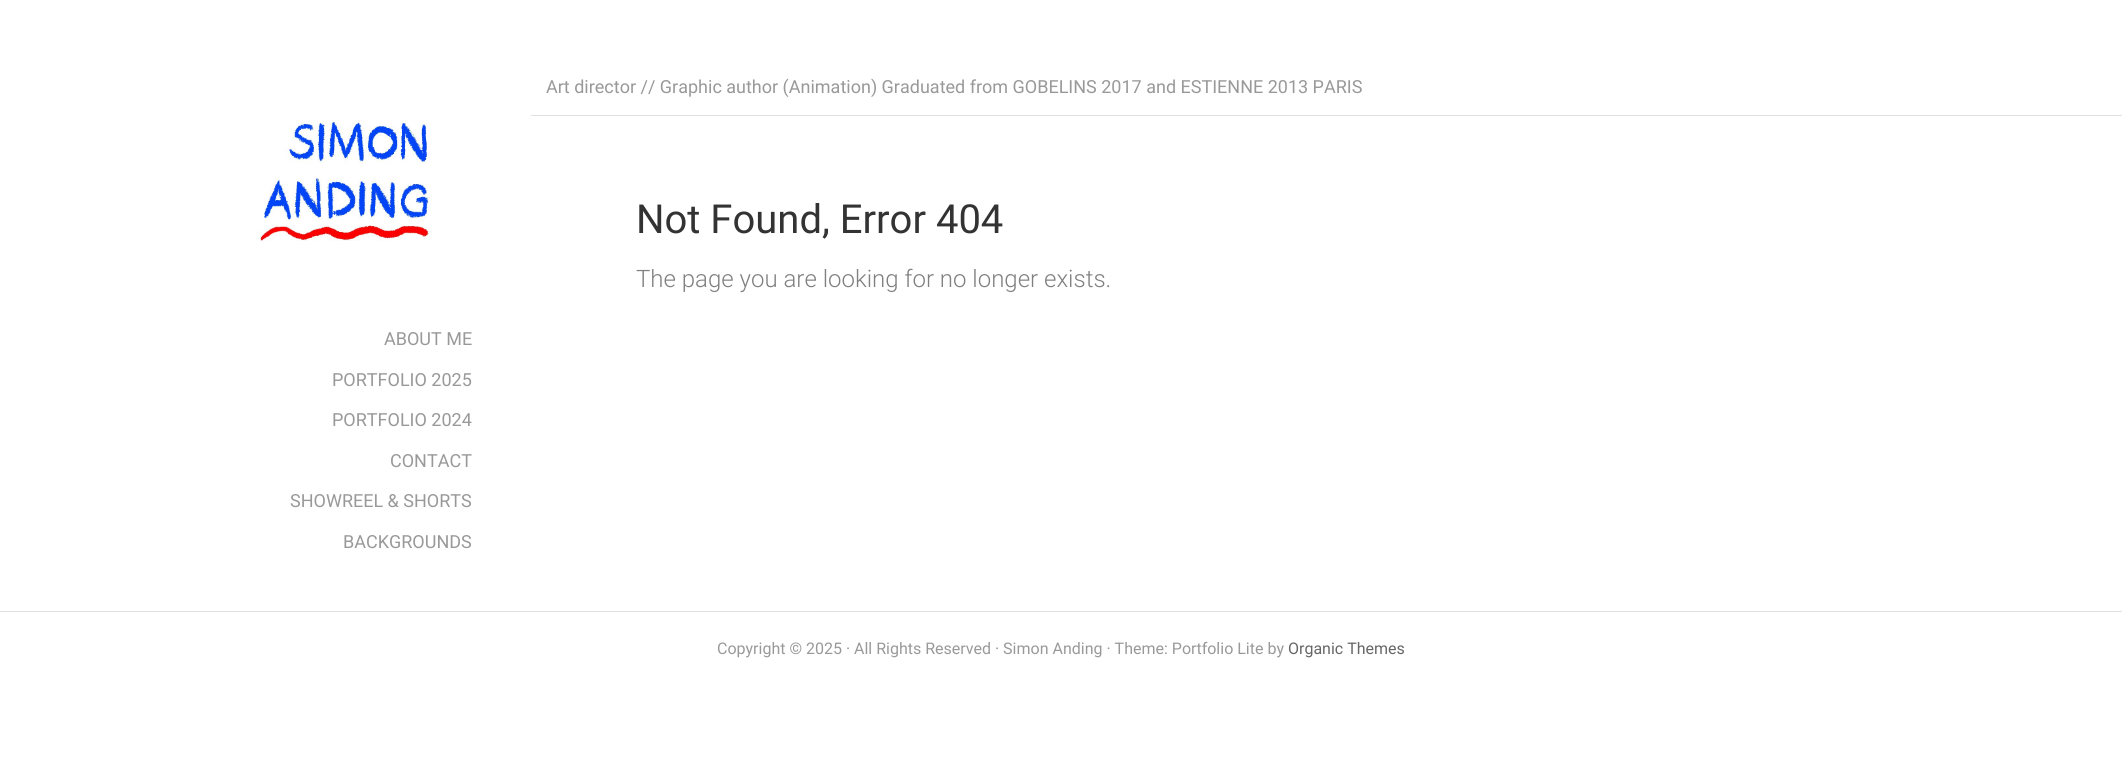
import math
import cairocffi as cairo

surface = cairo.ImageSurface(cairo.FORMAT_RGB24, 2122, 783)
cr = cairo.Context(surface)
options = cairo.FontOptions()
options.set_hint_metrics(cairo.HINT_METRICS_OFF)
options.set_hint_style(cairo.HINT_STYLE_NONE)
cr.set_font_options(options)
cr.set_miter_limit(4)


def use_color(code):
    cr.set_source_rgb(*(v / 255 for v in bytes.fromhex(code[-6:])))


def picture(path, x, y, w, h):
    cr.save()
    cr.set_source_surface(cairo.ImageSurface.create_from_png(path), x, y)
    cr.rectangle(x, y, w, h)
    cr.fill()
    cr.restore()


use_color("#ffffff")
cr.paint()
use_color("#e0e0e0")
cr.rectangle(531, 115, 1591, 1)
cr.fill()
cr.select_font_face("Roboto")
cr.set_font_size(18)
use_color("#999999")
cr.move_to(546, 93)
cr.show_text("Art director // Graphic author (Animation) Graduated from GOBELINS 2017 and ESTIENNE 2013 PARIS")
cr.set_font_size(40)
use_color("#333333")
cr.move_to(636, 233)
cr.show_text("Not Found, Error 404")
cr.select_font_face("Roboto Light")
cr.set_font_size(24)
use_color("#808080")
cr.move_to(636, 287)
cr.show_text("The page you are looking for no longer exists.")
picture("img1.png", 259, 120, 173, 121)
cr.select_font_face("Roboto")
cr.set_font_size(18)
use_color("#999999")
cr.move_to(384, 345)
cr.show_text("ABOUT ME")
cr.move_to(332, 386)
cr.show_text("PORTFOLIO 2025")
cr.move_to(332, 426)
cr.show_text("PORTFOLIO 2024")
cr.move_to(390, 467)
cr.show_text("CONTACT")
cr.move_to(290, 507)
cr.show_text("SHOWREEL & SHORTS")
cr.move_to(343, 548)
cr.show_text("BACKGROUNDS")
use_color("#e0e0e0")
cr.rectangle(0, 611, 2122, 1)
cr.fill()
cr.set_font_size(16)
use_color("#999999")
cr.move_to(717, 654)
cr.show_text("Copyright © 2025 · All Rights Reserved · Simon Anding · Theme: Portfolio Lite by")
use_color("#666666")
cr.move_to(1288, 654)
cr.show_text("Organic Themes")
surface.write_to_png("result.png")
